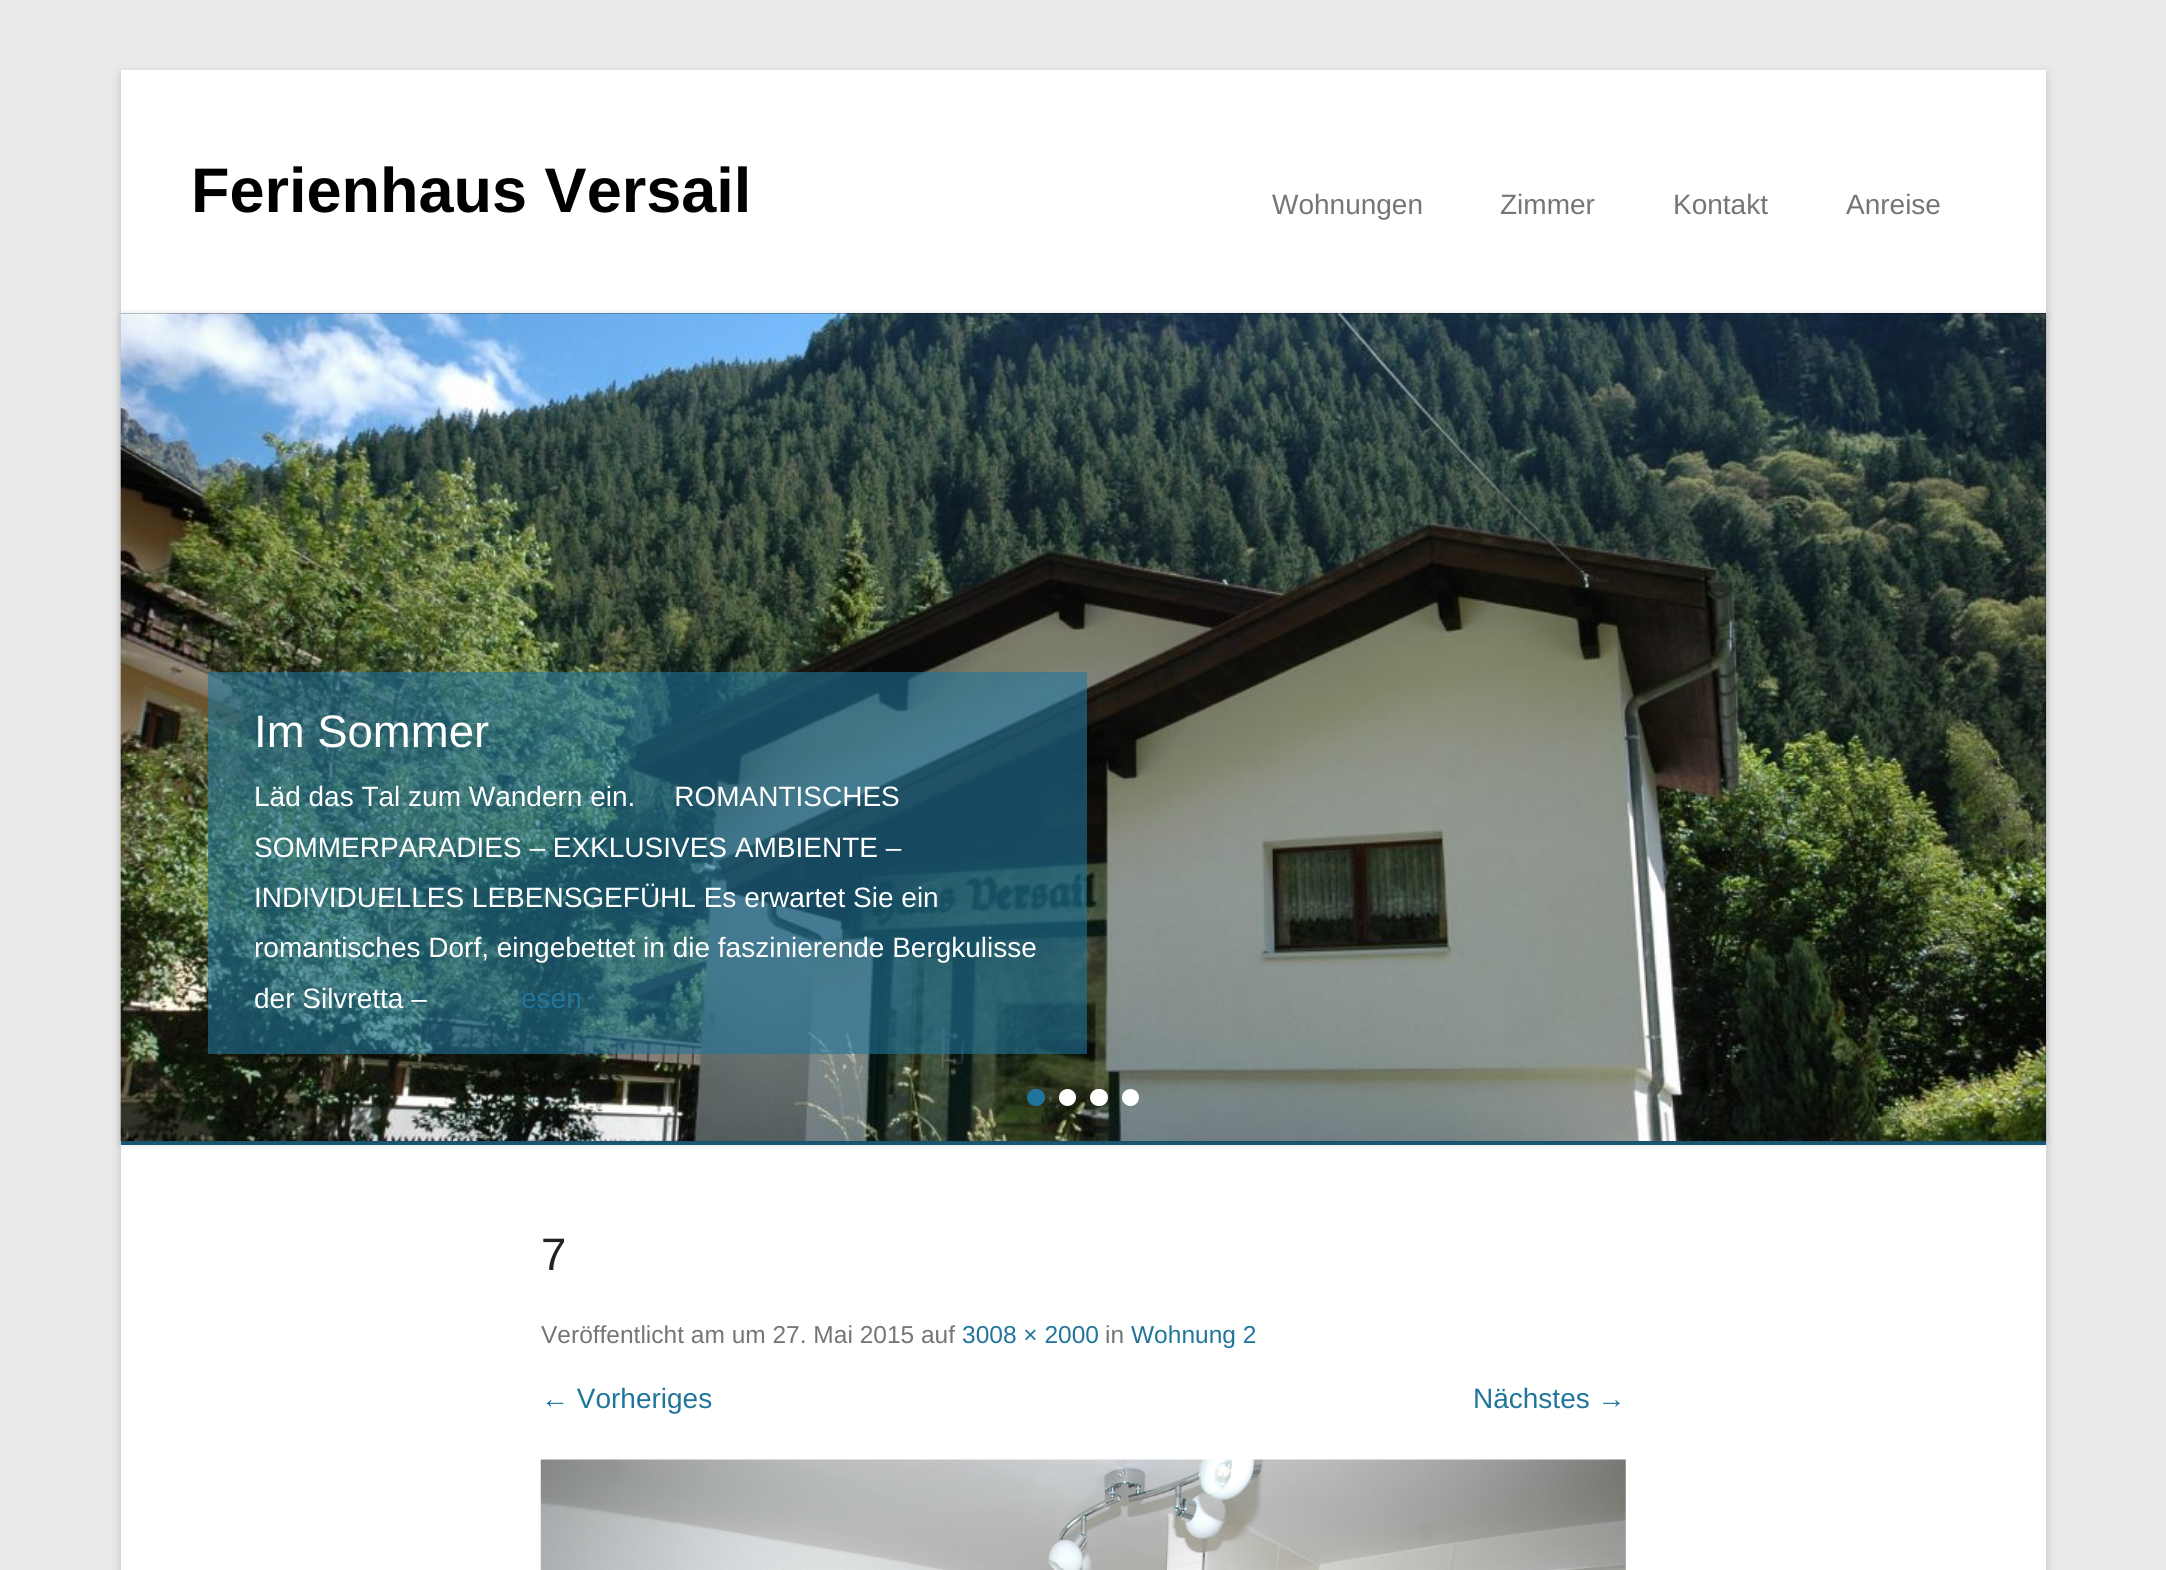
import math
import cairocffi as cairo

surface = cairo.ImageSurface(cairo.FORMAT_RGB24, 2166, 1570)
cr = cairo.Context(surface)
options = cairo.FontOptions()
options.set_hint_metrics(cairo.HINT_METRICS_OFF)
options.set_hint_style(cairo.HINT_STYLE_NONE)
cr.set_font_options(options)
cr.set_miter_limit(4)


def use_color(code):
    cr.set_source_rgb(*(v / 255 for v in bytes.fromhex(code[-6:])))


def round_rect(x, y, w, h, r):
    cr.new_sub_path()
    for i, (u, v) in enumerate([(x + w - r, y + h - r), (x + r, y + h - r), (x + r, y + r), (x + w - r, y + r)]):
        cr.arc(u, v, r, i * math.pi / 2, (i + 1) * math.pi / 2)
    cr.close_path()


def shadow(x, y, w, h, r, blur, alpha):
    cr.push_group_with_content(cairo.CONTENT_ALPHA)
    cr.set_operator(cairo.OPERATOR_SOURCE)
    for i in range(15, -16, -2):
        e = blur * i / 6
        if min(w, h) + 2 * e > 0:
            cr.set_source_rgba(0, 0, 0, alpha * math.erfc((i - 1) / 8.5) / 2)
            round_rect(x - e, y - e, w + 2 * e, h + 2 * e, max(0, min(r + e + blur * .6, min(w, h) / 2 + e)))
            cr.fill()
    cr.mask(cr.pop_group())


def picture(path, x, y, w, h):
    cr.save()
    cr.set_source_surface(cairo.ImageSurface.create_from_png(path), x, y)
    cr.rectangle(x, y, w, h)
    cr.fill()
    cr.restore()


use_color("#eaeaea")
cr.paint()
use_color("#646464")
shadow(121, 74, 1925, 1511, 0, 5, 0.3)
use_color("#ffffff")
cr.rectangle(121, 70, 1925, 1500)
cr.fill()
cr.select_font_face("Liberation Sans", cairo.FONT_SLANT_NORMAL, cairo.FONT_WEIGHT_BOLD)
cr.set_font_size(63)
use_color("#000000")
cr.move_to(191, 212)
cr.show_text("Ferienhaus Versail")
cr.select_font_face("Liberation Sans")
cr.set_font_size(28)
use_color("#757575")
cr.move_to(1272, 214)
cr.show_text("Wohnungen")
cr.move_to(1500, 214)
cr.show_text("Zimmer")
cr.move_to(1673, 214)
cr.show_text("Kontakt")
cr.move_to(1846, 214)
cr.show_text("Anreise")
use_color("#1b5f7d")
cr.rectangle(121, 1141, 1925, 4)
cr.fill()
use_color("#000000")
cr.rectangle(121, 313, 1925, 828)
cr.fill()
use_color("#000000")
shadow(121, 315, 1925, 828, 0, 3.5, 0.2)
picture("img1.png", 120, 313, 1926, 828)
cr.set_source_rgba(0.129, 0.459, 0.608, 0.6)
cr.rectangle(208, 672, 879, 382)
cr.fill()
cr.set_font_size(45.5)
use_color("#ffffff")
cr.move_to(254, 747)
cr.show_text("Im Sommer")
cr.set_font_size(28)
cr.move_to(254, 806)
cr.show_text("Läd das Tal zum Wandern ein.     ROMANTISCHES")
cr.move_to(254, 857)
cr.show_text("SOMMERPARADIES – EXKLUSIVES AMBIENTE –")
cr.move_to(254, 907)
cr.show_text("INDIVIDUELLES LEBENSGEFÜHL Es erwartet Sie ein")
cr.move_to(254, 957)
cr.show_text("romantisches Dorf, eingebettet in die faszinierende Bergkulisse")
cr.move_to(254, 1008)
cr.show_text("der Silvretta –")
use_color("#21759b")
cr.move_to(521, 1008)
cr.show_text("esen")
round_rect(1027, 1089, 18, 17, 8.5)
cr.fill()
use_color("#ffffff")
cr.arc(1067.5, 1097.5, 8.5, 0, 2 * math.pi)
cr.fill()
round_rect(1090, 1089, 18, 17, 8.5)
cr.fill()
cr.arc(1130.5, 1097.5, 8.5, 0, 2 * math.pi)
cr.fill()
cr.set_font_size(45.5)
use_color("#222222")
cr.move_to(541, 1270)
cr.show_text("7")
cr.set_font_size(24.5)
use_color("#757575")
cr.move_to(541, 1343)
cr.show_text("Veröffentlicht am um 27. Mai 2015 auf")
use_color("#21759b")
cr.move_to(962, 1343)
cr.show_text("3008 × 2000")
use_color("#757575")
cr.move_to(1105, 1343)
cr.show_text("in")
use_color("#21759b")
cr.move_to(1131, 1343)
cr.show_text("Wohnung 2")
cr.set_font_size(28)
cr.move_to(541, 1408)
cr.show_text("← Vorheriges")
cr.move_to(1473, 1408)
cr.show_text("Nächstes →")
picture("img2.png", 540, 1459, 1086, 111)
surface.write_to_png("result.png")
